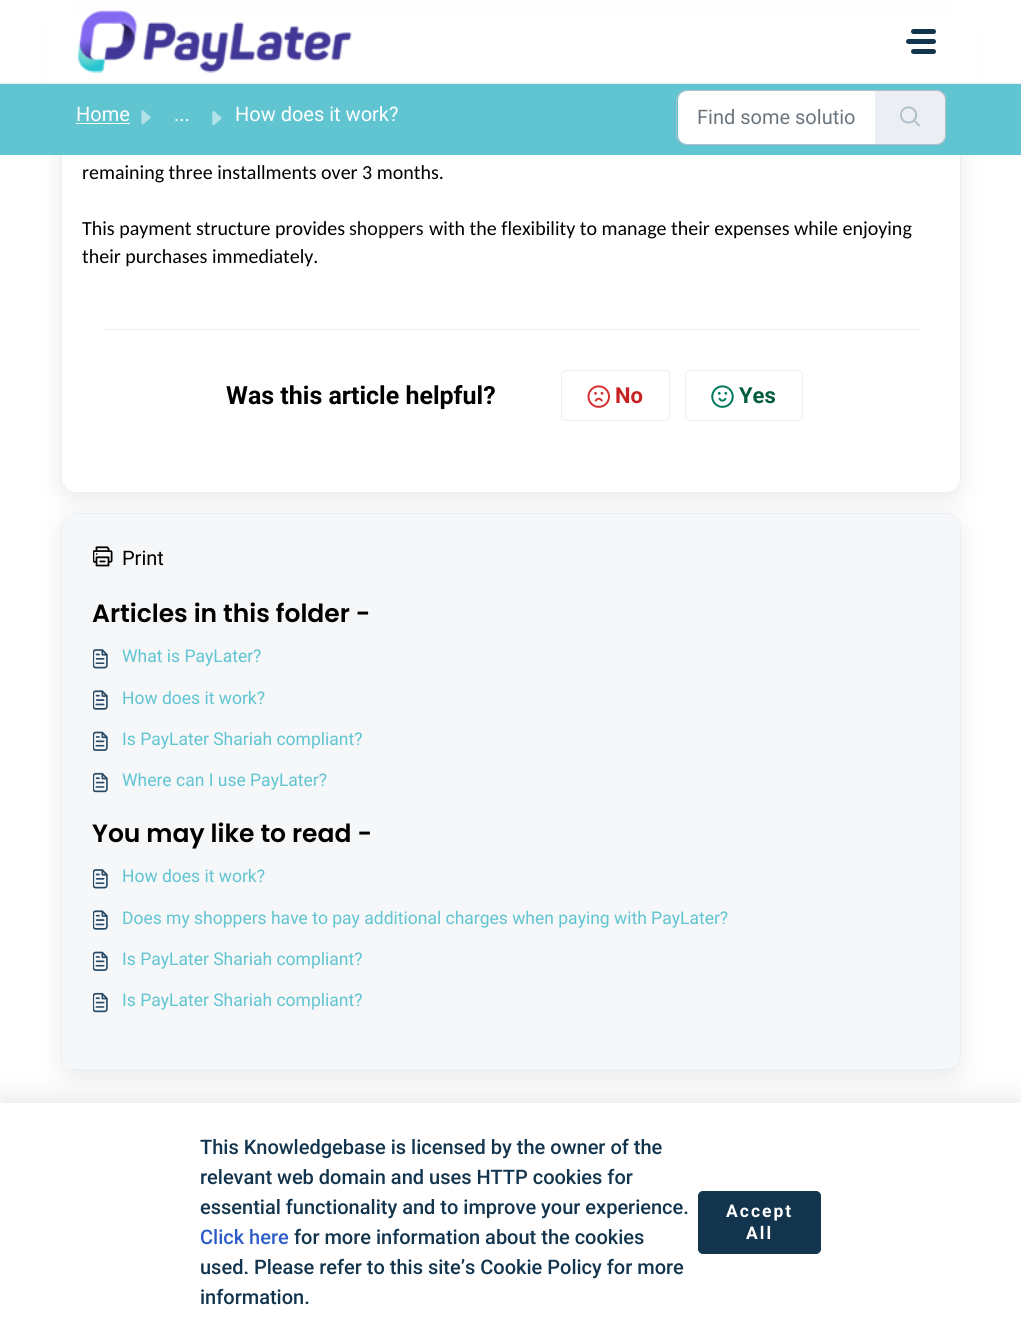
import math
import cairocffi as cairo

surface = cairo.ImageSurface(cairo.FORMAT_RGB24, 1021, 1342)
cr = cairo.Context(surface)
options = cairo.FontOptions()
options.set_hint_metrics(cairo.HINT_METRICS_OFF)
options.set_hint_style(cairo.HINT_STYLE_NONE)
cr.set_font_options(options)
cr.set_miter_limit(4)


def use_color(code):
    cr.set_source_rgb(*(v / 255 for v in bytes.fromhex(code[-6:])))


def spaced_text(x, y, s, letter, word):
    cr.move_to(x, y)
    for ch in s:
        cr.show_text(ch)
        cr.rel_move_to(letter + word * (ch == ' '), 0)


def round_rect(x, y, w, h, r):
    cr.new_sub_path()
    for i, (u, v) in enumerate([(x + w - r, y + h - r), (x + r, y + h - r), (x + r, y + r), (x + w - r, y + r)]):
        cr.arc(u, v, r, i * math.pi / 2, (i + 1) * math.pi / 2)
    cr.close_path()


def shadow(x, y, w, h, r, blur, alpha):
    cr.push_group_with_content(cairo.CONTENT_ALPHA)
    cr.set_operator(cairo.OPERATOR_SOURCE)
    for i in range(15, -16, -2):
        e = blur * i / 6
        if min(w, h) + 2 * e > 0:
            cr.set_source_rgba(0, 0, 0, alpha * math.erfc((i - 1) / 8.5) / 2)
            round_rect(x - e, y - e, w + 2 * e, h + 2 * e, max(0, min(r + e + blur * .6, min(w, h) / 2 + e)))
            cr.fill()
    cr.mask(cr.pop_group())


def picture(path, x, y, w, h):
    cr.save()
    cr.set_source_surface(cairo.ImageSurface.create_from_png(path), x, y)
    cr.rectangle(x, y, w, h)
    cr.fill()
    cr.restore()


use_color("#ffffff")
cr.paint()
cr.save()
cr.set_fill_rule(cairo.FILL_RULE_EVEN_ODD)
cr.new_path()
cr.move_to(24, 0)
cr.line_to(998, 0)
cr.line_to(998, 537)
cr.line_to(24, 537)
cr.close_path()
cr.move_to(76, 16)
cr.line_to(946, 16)
cr.curve_to(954.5, 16, 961, 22.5, 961, 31)
cr.line_to(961, 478)
cr.curve_to(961, 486.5, 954.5, 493, 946, 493)
cr.line_to(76, 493)
cr.curve_to(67.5, 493, 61, 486.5, 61, 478)
cr.line_to(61, 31)
cr.curve_to(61, 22.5, 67.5, 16, 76, 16)
cr.close_path()
cr.clip()
use_color("#27313a")
shadow(61, 24, 900, 476, 15, 12, 0.1)
cr.restore()
round_rect(61.5, 16.5, 899, 476, 14.5)
use_color("#ebeff3")
cr.set_line_width(1)
cr.stroke()
use_color("#ffffff")
cr.rectangle(47, 10, 928, 73)
cr.fill()
use_color("#ebeff3")
cr.rectangle(0, 83, 1021, 1)
cr.fill()
picture("img1.png", 77, 10, 275, 63)
use_color("#12344d")
round_rect(911, 29, 25, 5, 2.5)
cr.fill()
round_rect(906, 39, 30, 5, 2.5)
cr.fill()
round_rect(911, 49, 25, 5, 2.5)
cr.fill()
use_color("#60c4d1")
cr.rectangle(0, 84, 1021, 71)
cr.fill()
cr.select_font_face("Roboto")
cr.set_font_size(20)
use_color("#ffffff")
cr.move_to(76, 121)
cr.show_text("Home")
cr.rectangle(76, 123, 54, 1)
cr.fill()
picture("img2.png", 141, 110, 10, 15)
cr.move_to(174, 121)
cr.show_text("...")
picture("img3.png", 212, 111, 10, 15)
cr.move_to(235, 121)
cr.show_text("How does it work?")
cr.new_path()
cr.move_to(687, 91)
cr.line_to(875, 91)
cr.line_to(875, 144)
cr.line_to(687, 144)
cr.curve_to(682, 144, 678, 140, 678, 135)
cr.line_to(678, 100)
cr.curve_to(678, 95, 682, 91, 687, 91)
cr.close_path()
cr.fill()
cr.new_path()
cr.move_to(686, 90.5)
cr.line_to(875.5, 90.5)
cr.line_to(875.5, 144.5)
cr.line_to(686, 144.5)
cr.curve_to(681, 144.5, 676.5, 140, 676.5, 135)
cr.line_to(676.5, 100)
cr.curve_to(676.5, 95, 681, 90.5, 686, 90.5)
cr.close_path()
use_color("#b1bdc8")
cr.stroke()
use_color("#6c757d")
cr.move_to(697, 124)
cr.show_text("Find some solutio")
use_color("#ebeff3")
cr.new_path()
cr.move_to(875, 90)
cr.line_to(936, 90)
cr.curve_to(941.5, 90, 946, 94.5, 946, 100)
cr.line_to(946, 135)
cr.curve_to(946, 140.5, 941.5, 145, 936, 145)
cr.line_to(875, 145)
cr.close_path()
cr.fill()
use_color("#b1bdc8")
cr.set_fill_rule(cairo.FILL_RULE_EVEN_ODD)
cr.new_path()
cr.move_to(875, 90)
cr.line_to(936, 90)
cr.curve_to(942, 90, 946, 94, 946, 100)
cr.line_to(946, 135)
cr.curve_to(946, 141, 942, 145, 936, 145)
cr.line_to(875, 145)
cr.close_path()
cr.move_to(875, 91)
cr.line_to(936, 91)
cr.curve_to(941, 91, 945, 95, 945, 100)
cr.line_to(945, 135)
cr.curve_to(945, 140, 941, 144, 936, 144)
cr.line_to(875, 144)
cr.close_path()
cr.fill()
picture("img4.png", 900, 106, 20, 21)
cr.select_font_face("Carlito")
use_color("#000000")
cr.move_to(82, 179)
cr.show_text("remaining three installments over 3 months.")
cr.move_to(82, 235)
cr.show_text("This payment structure provides")
use_color("#0d0d0d")
cr.move_to(349, 235)
cr.show_text("shoppers")
use_color("#000000")
cr.move_to(429, 235)
cr.show_text("with the flexibility to manage their expenses while enjoying")
cr.move_to(82, 263)
cr.show_text("their purchases immediately.")
use_color("#ebeff3")
cr.rectangle(103, 329, 817, 1)
cr.fill()
cr.select_font_face("Roboto", cairo.FONT_SLANT_NORMAL, cairo.FONT_WEIGHT_BOLD)
cr.set_font_size(25)
use_color("#000000")
cr.move_to(226, 404)
cr.show_text("Was this article helpful?")
round_rect(561.5, 370.5, 108, 50, 4.5)
use_color("#ebeff3")
cr.stroke()
picture("img5.png", 587, 385, 23, 23)
cr.set_font_size(22)
use_color("#c82124")
cr.move_to(615, 403)
cr.show_text("No")
round_rect(685.5, 370.5, 117, 50, 4.5)
use_color("#ebeff3")
cr.stroke()
picture("img6.png", 711, 385, 23, 23)
use_color("#005c3f")
cr.move_to(739, 403)
cr.show_text("Yes")
use_color("#27313a")
shadow(61, 520, 900, 558, 15, 12, 0.1)
round_rect(61.5, 513.5, 899, 556, 14.5)
use_color("#ebeff3")
cr.stroke()
use_color("#f5f7f9")
cr.new_path()
cr.move_to(63, 514)
cr.line_to(945, 514)
cr.curve_to(953.5, 514, 960, 520.5, 960, 529)
cr.line_to(960, 1054)
cr.curve_to(960, 1062.5, 953.5, 1069, 945, 1069)
cr.line_to(63, 1069)
cr.close_path()
cr.fill()
picture("img7.png", 93, 546, 20, 21)
cr.select_font_face("Roboto")
cr.set_font_size(20)
use_color("#000000")
cr.move_to(122, 565)
cr.show_text("Print")
cr.select_font_face("Poppins SemiBold")
cr.set_font_size(25)
cr.move_to(92, 622)
cr.show_text("Articles in this folder -")
picture("img8.png", 93, 649, 15, 20)
cr.select_font_face("Roboto")
cr.set_font_size(17.5)
use_color("#60c4d1")
cr.move_to(122, 662)
cr.show_text("What is PayLater?")
picture("img9.png", 93, 690, 15, 20)
cr.move_to(122, 704)
cr.show_text("How does it work?")
picture("img10.png", 93, 731, 15, 20)
cr.move_to(122, 745)
cr.show_text("Is PayLater Shariah compliant?")
picture("img11.png", 93, 772, 15, 21)
cr.move_to(122, 786)
cr.show_text("Where can I use PayLater?")
cr.select_font_face("Poppins SemiBold")
cr.set_font_size(25)
use_color("#000000")
cr.move_to(92, 842)
cr.show_text("You may like to read -")
picture("img8.png", 93, 869, 15, 20)
cr.select_font_face("Roboto")
cr.set_font_size(17.5)
use_color("#60c4d1")
cr.move_to(122, 882)
cr.show_text("How does it work?")
picture("img9.png", 93, 910, 15, 20)
cr.move_to(122, 924)
cr.show_text("Does my shoppers have to pay additional charges when paying with PayLater?")
picture("img10.png", 93, 951, 15, 20)
cr.move_to(122, 965)
cr.show_text("Is PayLater Shariah compliant?")
picture("img11.png", 93, 992, 15, 21)
cr.move_to(122, 1006)
cr.show_text("Is PayLater Shariah compliant?")
use_color("#27313a")
shadow(0, 1096, 1021, 240, 0, 12, 0.1)
use_color("#ffffff")
cr.rectangle(0, 1103, 1021, 239)
cr.fill()
cr.select_font_face("Roboto Medium")
cr.set_font_size(20)
use_color("#12344d")
cr.move_to(200, 1154)
cr.show_text("This Knowledgebase is licensed by the owner of the")
cr.move_to(200, 1184)
cr.show_text("relevant web domain and uses HTTP cookies for")
cr.move_to(200, 1214)
cr.show_text("essential functionality and to improve your experience.")
use_color("#2c5cc5")
cr.move_to(200, 1244)
cr.show_text("Click here")
use_color("#12344d")
cr.move_to(294, 1244)
cr.show_text("for more information about the cookies")
cr.move_to(200, 1274)
cr.show_text("used. Please refer to this site’s Cookie Policy for more")
cr.move_to(200, 1304)
cr.show_text("information.")
round_rect(698.5, 1191.5, 122, 62, 4.5)
cr.fill_preserve()
cr.stroke()
cr.select_font_face("Roboto", cairo.FONT_SLANT_NORMAL, cairo.FONT_WEIGHT_BOLD)
cr.set_font_size(17.5)
use_color("#ffffff")
spaced_text(726, 1217, "Accept", 2, 0)
spaced_text(746, 1239, "All", 2, 0)
surface.write_to_png("result.png")
